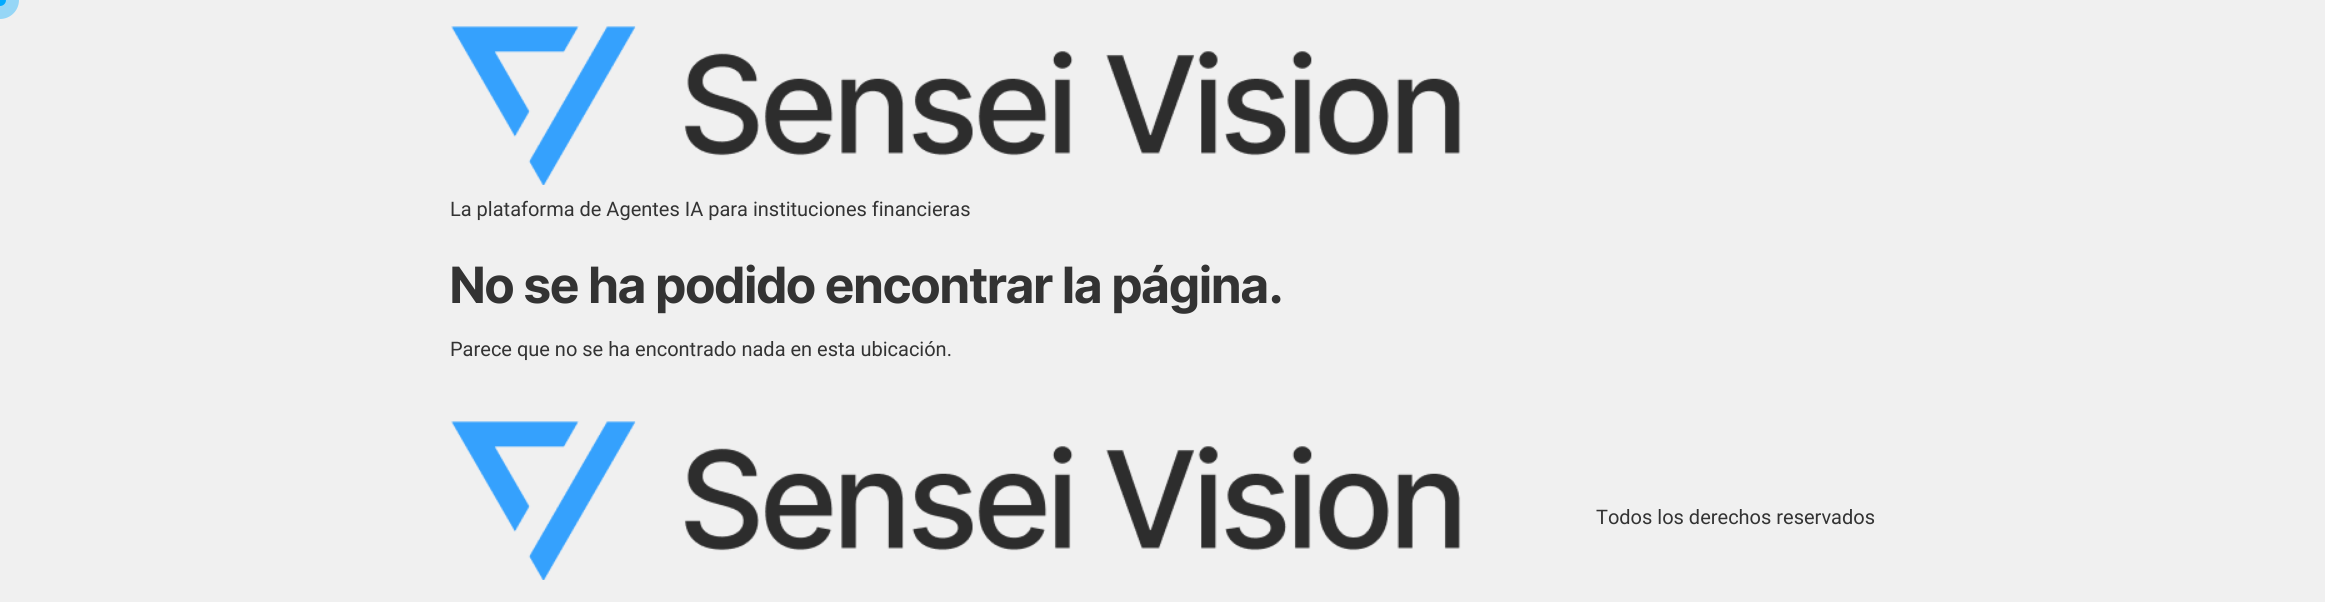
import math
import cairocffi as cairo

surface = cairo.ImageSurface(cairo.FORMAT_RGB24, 2325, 602)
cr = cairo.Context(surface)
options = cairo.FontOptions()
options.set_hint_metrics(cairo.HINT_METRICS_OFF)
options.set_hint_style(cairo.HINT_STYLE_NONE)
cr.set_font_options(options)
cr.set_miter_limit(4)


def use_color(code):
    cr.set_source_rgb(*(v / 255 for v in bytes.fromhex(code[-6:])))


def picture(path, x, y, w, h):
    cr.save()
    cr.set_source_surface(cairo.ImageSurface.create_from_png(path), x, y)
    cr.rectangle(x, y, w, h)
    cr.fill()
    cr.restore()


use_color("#f0f0f0")
cr.paint()
use_color("#96d6f6")
cr.arc(0, 0, 19, 0, 2 * math.pi)
cr.fill()
use_color("#00aaff")
cr.arc(0, 0, 6, 0, 2 * math.pi)
cr.fill()
picture("img1.png", 451, 26, 1010, 159)
cr.select_font_face("Roboto")
cr.set_font_size(20)
use_color("#333333")
cr.move_to(450, 216)
cr.show_text("La plataforma de Agentes IA para instituciones financieras")
cr.select_font_face("Inter Tight", cairo.FONT_SLANT_NORMAL, cairo.FONT_WEIGHT_BOLD)
cr.set_font_size(50)
cr.move_to(450, 303)
cr.show_text("No se ha podido encontrar la página.")
cr.select_font_face("Roboto")
cr.set_font_size(20)
cr.move_to(450, 356)
cr.show_text("Parece que no se ha encontrado nada en esta ubicación.")
picture("img1.png", 451, 421, 1010, 159)
cr.move_to(1596, 524)
cr.show_text("Todos los derechos reservados")
surface.write_to_png("result.png")
